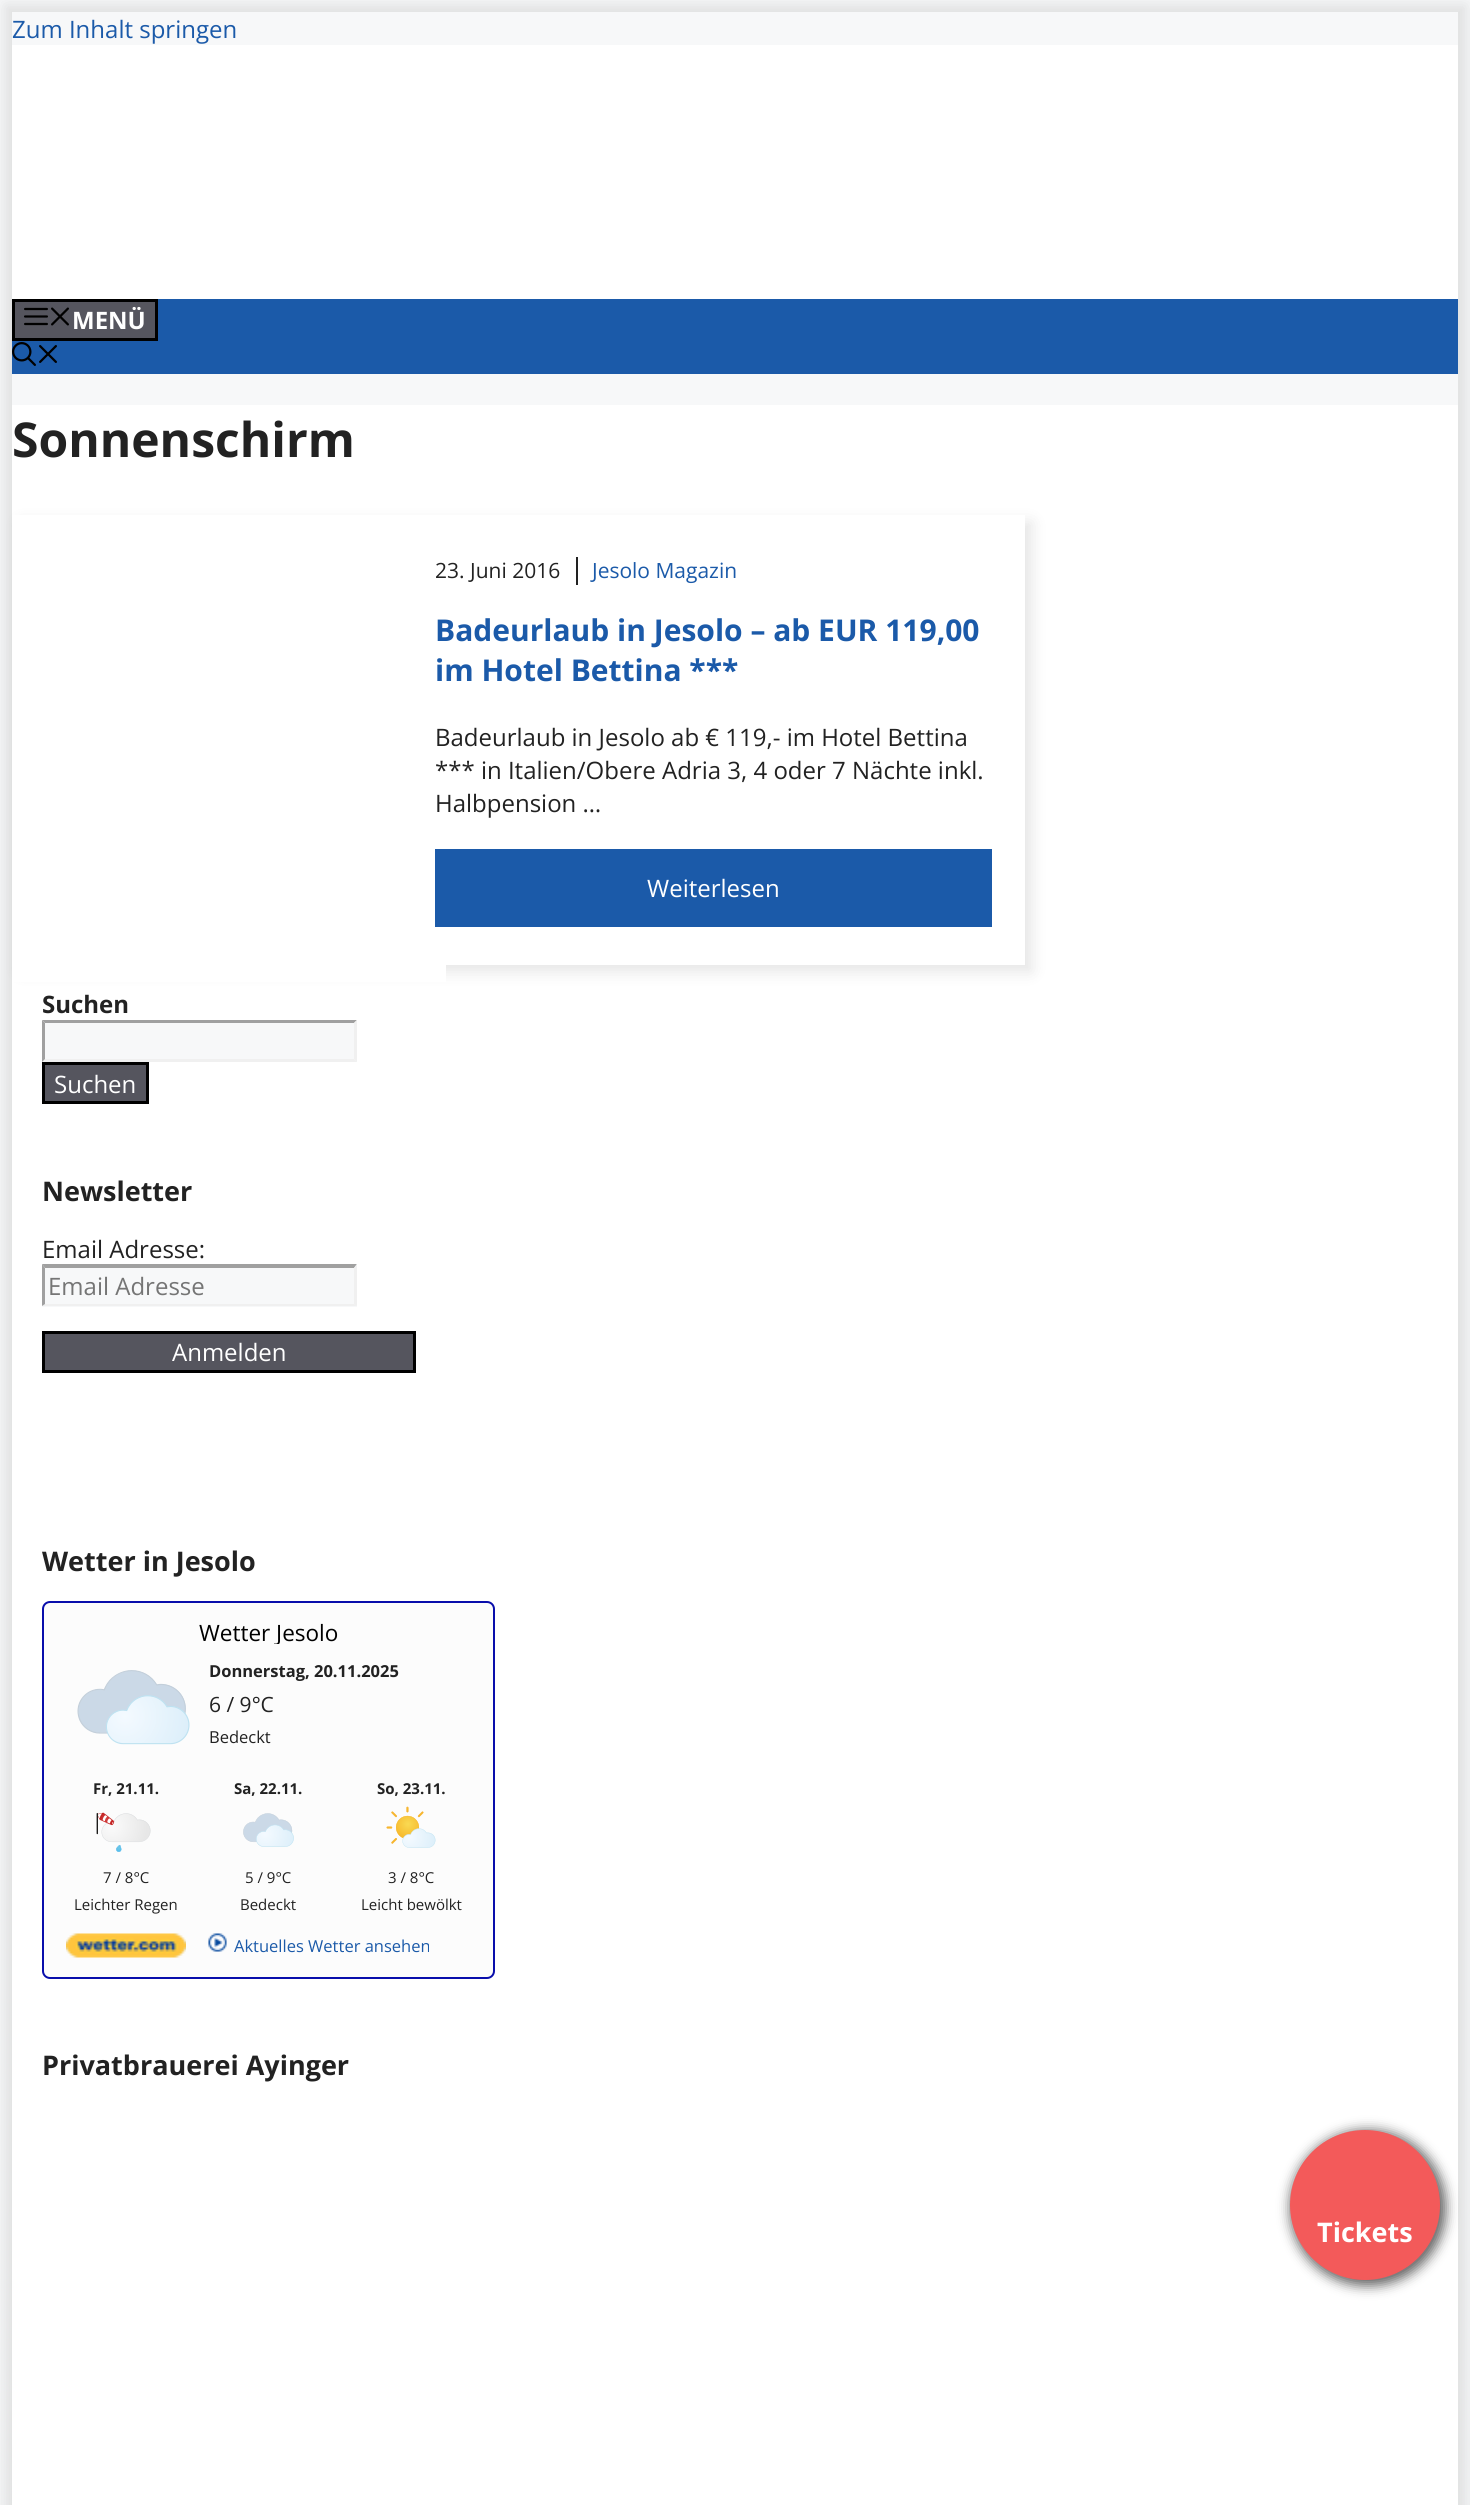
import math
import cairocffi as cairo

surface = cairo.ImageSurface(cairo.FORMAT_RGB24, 1470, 2505)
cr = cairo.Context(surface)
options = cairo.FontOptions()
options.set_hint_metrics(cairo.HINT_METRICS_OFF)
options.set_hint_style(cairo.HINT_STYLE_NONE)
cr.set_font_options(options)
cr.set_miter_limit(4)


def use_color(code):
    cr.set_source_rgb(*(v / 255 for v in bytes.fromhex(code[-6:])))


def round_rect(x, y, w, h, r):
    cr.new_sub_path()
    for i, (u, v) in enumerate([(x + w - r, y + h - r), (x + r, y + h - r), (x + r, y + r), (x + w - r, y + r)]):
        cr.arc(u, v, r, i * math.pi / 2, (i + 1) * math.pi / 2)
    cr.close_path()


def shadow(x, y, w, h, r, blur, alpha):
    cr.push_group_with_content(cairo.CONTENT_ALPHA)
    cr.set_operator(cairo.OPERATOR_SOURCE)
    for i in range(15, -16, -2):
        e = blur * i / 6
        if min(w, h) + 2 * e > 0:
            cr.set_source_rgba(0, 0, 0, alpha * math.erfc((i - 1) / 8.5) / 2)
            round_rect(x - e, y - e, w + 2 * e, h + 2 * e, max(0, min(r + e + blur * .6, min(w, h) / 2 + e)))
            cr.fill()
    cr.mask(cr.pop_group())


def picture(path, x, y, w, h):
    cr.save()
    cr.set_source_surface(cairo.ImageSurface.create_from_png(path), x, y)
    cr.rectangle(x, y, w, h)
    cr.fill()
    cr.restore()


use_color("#f7f8f9")
cr.paint()
cr.save()
cr.set_fill_rule(cairo.FILL_RULE_EVEN_ODD)
cr.new_path()
cr.move_to(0, 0)
cr.line_to(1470, 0)
cr.line_to(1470, 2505)
cr.line_to(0, 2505)
cr.close_path()
cr.move_to(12, 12)
cr.line_to(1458, 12)
cr.line_to(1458, 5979)
cr.line_to(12, 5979)
cr.close_path()
cr.clip()
use_color("#000000")
shadow(5, 5, 1461, 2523, 0, 7.5, 0.1)
cr.restore()
cr.select_font_face("Open Sans")
cr.set_font_size(24)
use_color("#1b5aa9")
cr.move_to(12, 38)
cr.show_text("Zum Inhalt springen")
use_color("#ffffff")
cr.rectangle(12, 45, 1446, 254)
cr.fill()
use_color("#1b5aa9")
cr.rectangle(12, 299, 1446, 75)
cr.fill()
use_color("#55555e")
cr.rectangle(13.5, 300.5, 143, 39)
cr.fill_preserve()
use_color("#000000")
cr.set_line_width(3)
cr.stroke()
picture("img1.png", 24, 307, 24, 19)
picture("img2.png", 51, 307, 18, 19)
cr.select_font_face("Open Sans", cairo.FONT_SLANT_NORMAL, cairo.FONT_WEIGHT_BOLD)
use_color("#ffffff")
cr.move_to(72, 329)
cr.show_text("MENÜ")
picture("img3.png", 12, 342, 24, 24)
picture("img4.png", 39, 345, 18, 18)
cr.rectangle(12, 405, 1446, 2100)
cr.fill()
cr.set_font_size(48)
use_color("#222222")
cr.move_to(12, 457)
cr.show_text("Sonnenschirm")
cr.save()
cr.set_fill_rule(cairo.FILL_RULE_EVEN_ODD)
cr.new_path()
cr.move_to(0, 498)
cr.line_to(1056, 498)
cr.line_to(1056, 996)
cr.line_to(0, 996)
cr.close_path()
cr.move_to(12, 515)
cr.line_to(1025, 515)
cr.line_to(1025, 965)
cr.line_to(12, 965)
cr.close_path()
cr.clip()
use_color("#000000")
shadow(20, 522, 1012, 450, 0, 7.5, 0.1)
cr.restore()
cr.rectangle(576, 557, 2, 28)
cr.fill()
cr.select_font_face("Open Sans")
cr.set_font_size(21)
cr.move_to(435, 578)
cr.show_text("23. Juni 2016")
use_color("#1b5aa9")
cr.move_to(592, 578)
cr.show_text("Jesolo Magazin")
cr.select_font_face("Open Sans", cairo.FONT_SLANT_NORMAL, cairo.FONT_WEIGHT_BOLD)
cr.set_font_size(30)
cr.move_to(435, 641)
cr.show_text("Badeurlaub in Jesolo – ab EUR 119,00")
cr.move_to(435, 681)
cr.show_text("im Hotel Bettina ***")
cr.select_font_face("Open Sans")
cr.set_font_size(24)
use_color("#222222")
cr.move_to(435, 746)
cr.show_text("Badeurlaub in Jesolo ab € 119,- im Hotel Bettina")
cr.move_to(435, 779)
cr.show_text("*** in Italien/Obere Adria 3, 4 oder 7 Nächte inkl.")
cr.move_to(435, 812)
cr.show_text("Halbpension …")
use_color("#1b5aa9")
cr.rectangle(435, 849, 557, 78)
cr.fill()
use_color("#ffffff")
cr.move_to(647, 897)
cr.show_text("Weiterlesen")
cr.rectangle(12, 965, 434, 17)
cr.fill()
cr.select_font_face("Open Sans", cairo.FONT_SLANT_NORMAL, cairo.FONT_WEIGHT_BOLD)
use_color("#222222")
cr.move_to(42, 1013)
cr.show_text("Suchen")
use_color("#f7f8f9")
cr.rectangle(42, 1020, 315, 42)
cr.fill()
use_color("#a0a0a0")
cr.new_path()
cr.move_to(42, 1020)
cr.line_to(357, 1020)
cr.line_to(354, 1023)
cr.line_to(45, 1023)
cr.close_path()
cr.fill()
use_color("#f0f0f0")
cr.new_path()
cr.move_to(357, 1020)
cr.line_to(357, 1062)
cr.line_to(354, 1059)
cr.line_to(354, 1023)
cr.close_path()
cr.fill()
cr.new_path()
cr.move_to(357, 1062)
cr.line_to(42, 1062)
cr.line_to(45, 1059)
cr.line_to(354, 1059)
cr.close_path()
cr.fill()
use_color("#a0a0a0")
cr.new_path()
cr.move_to(42, 1062)
cr.line_to(42, 1020)
cr.line_to(45, 1023)
cr.line_to(45, 1059)
cr.close_path()
cr.fill()
use_color("#55555e")
cr.rectangle(43.5, 1063.5, 104, 39)
cr.fill_preserve()
use_color("#000000")
cr.stroke()
cr.select_font_face("Open Sans")
use_color("#ffffff")
cr.move_to(54, 1093)
cr.show_text("Suchen")
cr.select_font_face("Open Sans", cairo.FONT_SLANT_NORMAL, cairo.FONT_WEIGHT_BOLD)
cr.set_font_size(27)
use_color("#222222")
cr.move_to(42, 1201)
cr.show_text("Newsletter")
cr.select_font_face("Open Sans")
cr.set_font_size(24)
cr.move_to(42, 1258)
cr.show_text("Email Adresse:")
use_color("#f7f8f9")
cr.rectangle(42, 1265, 315, 42)
cr.fill()
use_color("#a0a0a0")
cr.new_path()
cr.move_to(42, 1264)
cr.line_to(357, 1264)
cr.line_to(354, 1268)
cr.line_to(45, 1268)
cr.close_path()
cr.fill()
use_color("#f0f0f0")
cr.new_path()
cr.move_to(357, 1264)
cr.line_to(357, 1306)
cr.line_to(354, 1304)
cr.line_to(354, 1268)
cr.close_path()
cr.fill()
cr.new_path()
cr.move_to(357, 1306)
cr.line_to(42, 1306)
cr.line_to(45, 1304)
cr.line_to(354, 1304)
cr.close_path()
cr.fill()
use_color("#a0a0a0")
cr.new_path()
cr.move_to(42, 1306)
cr.line_to(42, 1264)
cr.line_to(45, 1268)
cr.line_to(45, 1304)
cr.close_path()
cr.fill()
use_color("#757575")
cr.move_to(48, 1295)
cr.show_text("Email Adresse")
use_color("#55555e")
cr.rectangle(43.5, 1332.5, 371, 39)
cr.fill_preserve()
use_color("#000000")
cr.stroke()
use_color("#ffffff")
cr.move_to(172, 1361)
cr.show_text("Anmelden")
cr.select_font_face("Open Sans", cairo.FONT_SLANT_NORMAL, cairo.FONT_WEIGHT_BOLD)
cr.set_font_size(27)
use_color("#222222")
cr.move_to(42, 1571)
cr.show_text("Wetter in Jesolo")
use_color("#fcfcfc")
round_rect(43, 1602, 451, 376, 7)
cr.fill_preserve()
use_color("#090eab")
cr.set_line_width(2)
cr.stroke()
cr.save()
cr.rectangle(59, 1617, 420, 27)
cr.clip()
cr.select_font_face("Open Sans")
cr.set_font_size(22.5)
use_color("#000000")
cr.move_to(199, 1641)
cr.show_text("Wetter Jesolo")
cr.restore()
picture("img5.png", 77, 1670, 113, 75)
cr.set_font_size(16.5)
use_color("#222222")
cr.move_to(209, 1677)
cr.show_text("Donnerstag, 20.11.2025")
cr.select_font_face("Open Sans")
cr.set_font_size(21)
cr.move_to(209, 1712)
cr.show_text("6 / 9°C")
cr.set_font_size(16.5)
cr.move_to(209, 1743)
cr.show_text("Bedeckt")
cr.select_font_face("Open Sans", cairo.FONT_SLANT_NORMAL, cairo.FONT_WEIGHT_BOLD)
cr.set_font_size(15)
cr.move_to(93, 1794)
cr.show_text("Fr, 21.11.")
picture("img6.png", 96, 1812, 55, 40)
cr.select_font_face("Open Sans")
cr.move_to(103, 1883)
cr.show_text("7 / 8°C")
cr.move_to(74, 1910)
cr.show_text("Leichter Regen")
cr.select_font_face("Open Sans", cairo.FONT_SLANT_NORMAL, cairo.FONT_WEIGHT_BOLD)
cr.move_to(234, 1794)
cr.show_text("Sa, 22.11.")
picture("img7.png", 243, 1813, 51, 34)
cr.select_font_face("Open Sans")
cr.move_to(245, 1883)
cr.show_text("5 / 9°C")
cr.move_to(240, 1910)
cr.show_text("Bedeckt")
cr.select_font_face("Open Sans", cairo.FONT_SLANT_NORMAL, cairo.FONT_WEIGHT_BOLD)
cr.move_to(377, 1794)
cr.show_text("So, 23.11.")
picture("img8.png", 386, 1806, 50, 42)
cr.select_font_face("Open Sans")
cr.move_to(388, 1883)
cr.show_text("3 / 8°C")
cr.move_to(361, 1910)
cr.show_text("Leicht bewölkt")
picture("img9.png", 66, 1933, 120, 25)
picture("img10.png", 208, 1933, 19, 19)
cr.set_font_size(16.5)
use_color("#1b5aa9")
cr.move_to(234, 1952)
cr.show_text("Aktuelles Wetter ansehen")
cr.select_font_face("Open Sans", cairo.FONT_SLANT_NORMAL, cairo.FONT_WEIGHT_BOLD)
cr.set_font_size(27)
use_color("#222222")
cr.move_to(42, 2075)
cr.show_text("Privatbrauerei Ayinger")
use_color("#000000")
shadow(1290, 2130, 156, 156, 78, 6, 0.6)
use_color("#f35a5a")
cr.arc(1365, 2205, 75, 0, 2 * math.pi)
cr.fill()
use_color("#ffffff")
cr.move_to(1317, 2242)
cr.show_text("Tickets")
surface.write_to_png("result.png")
